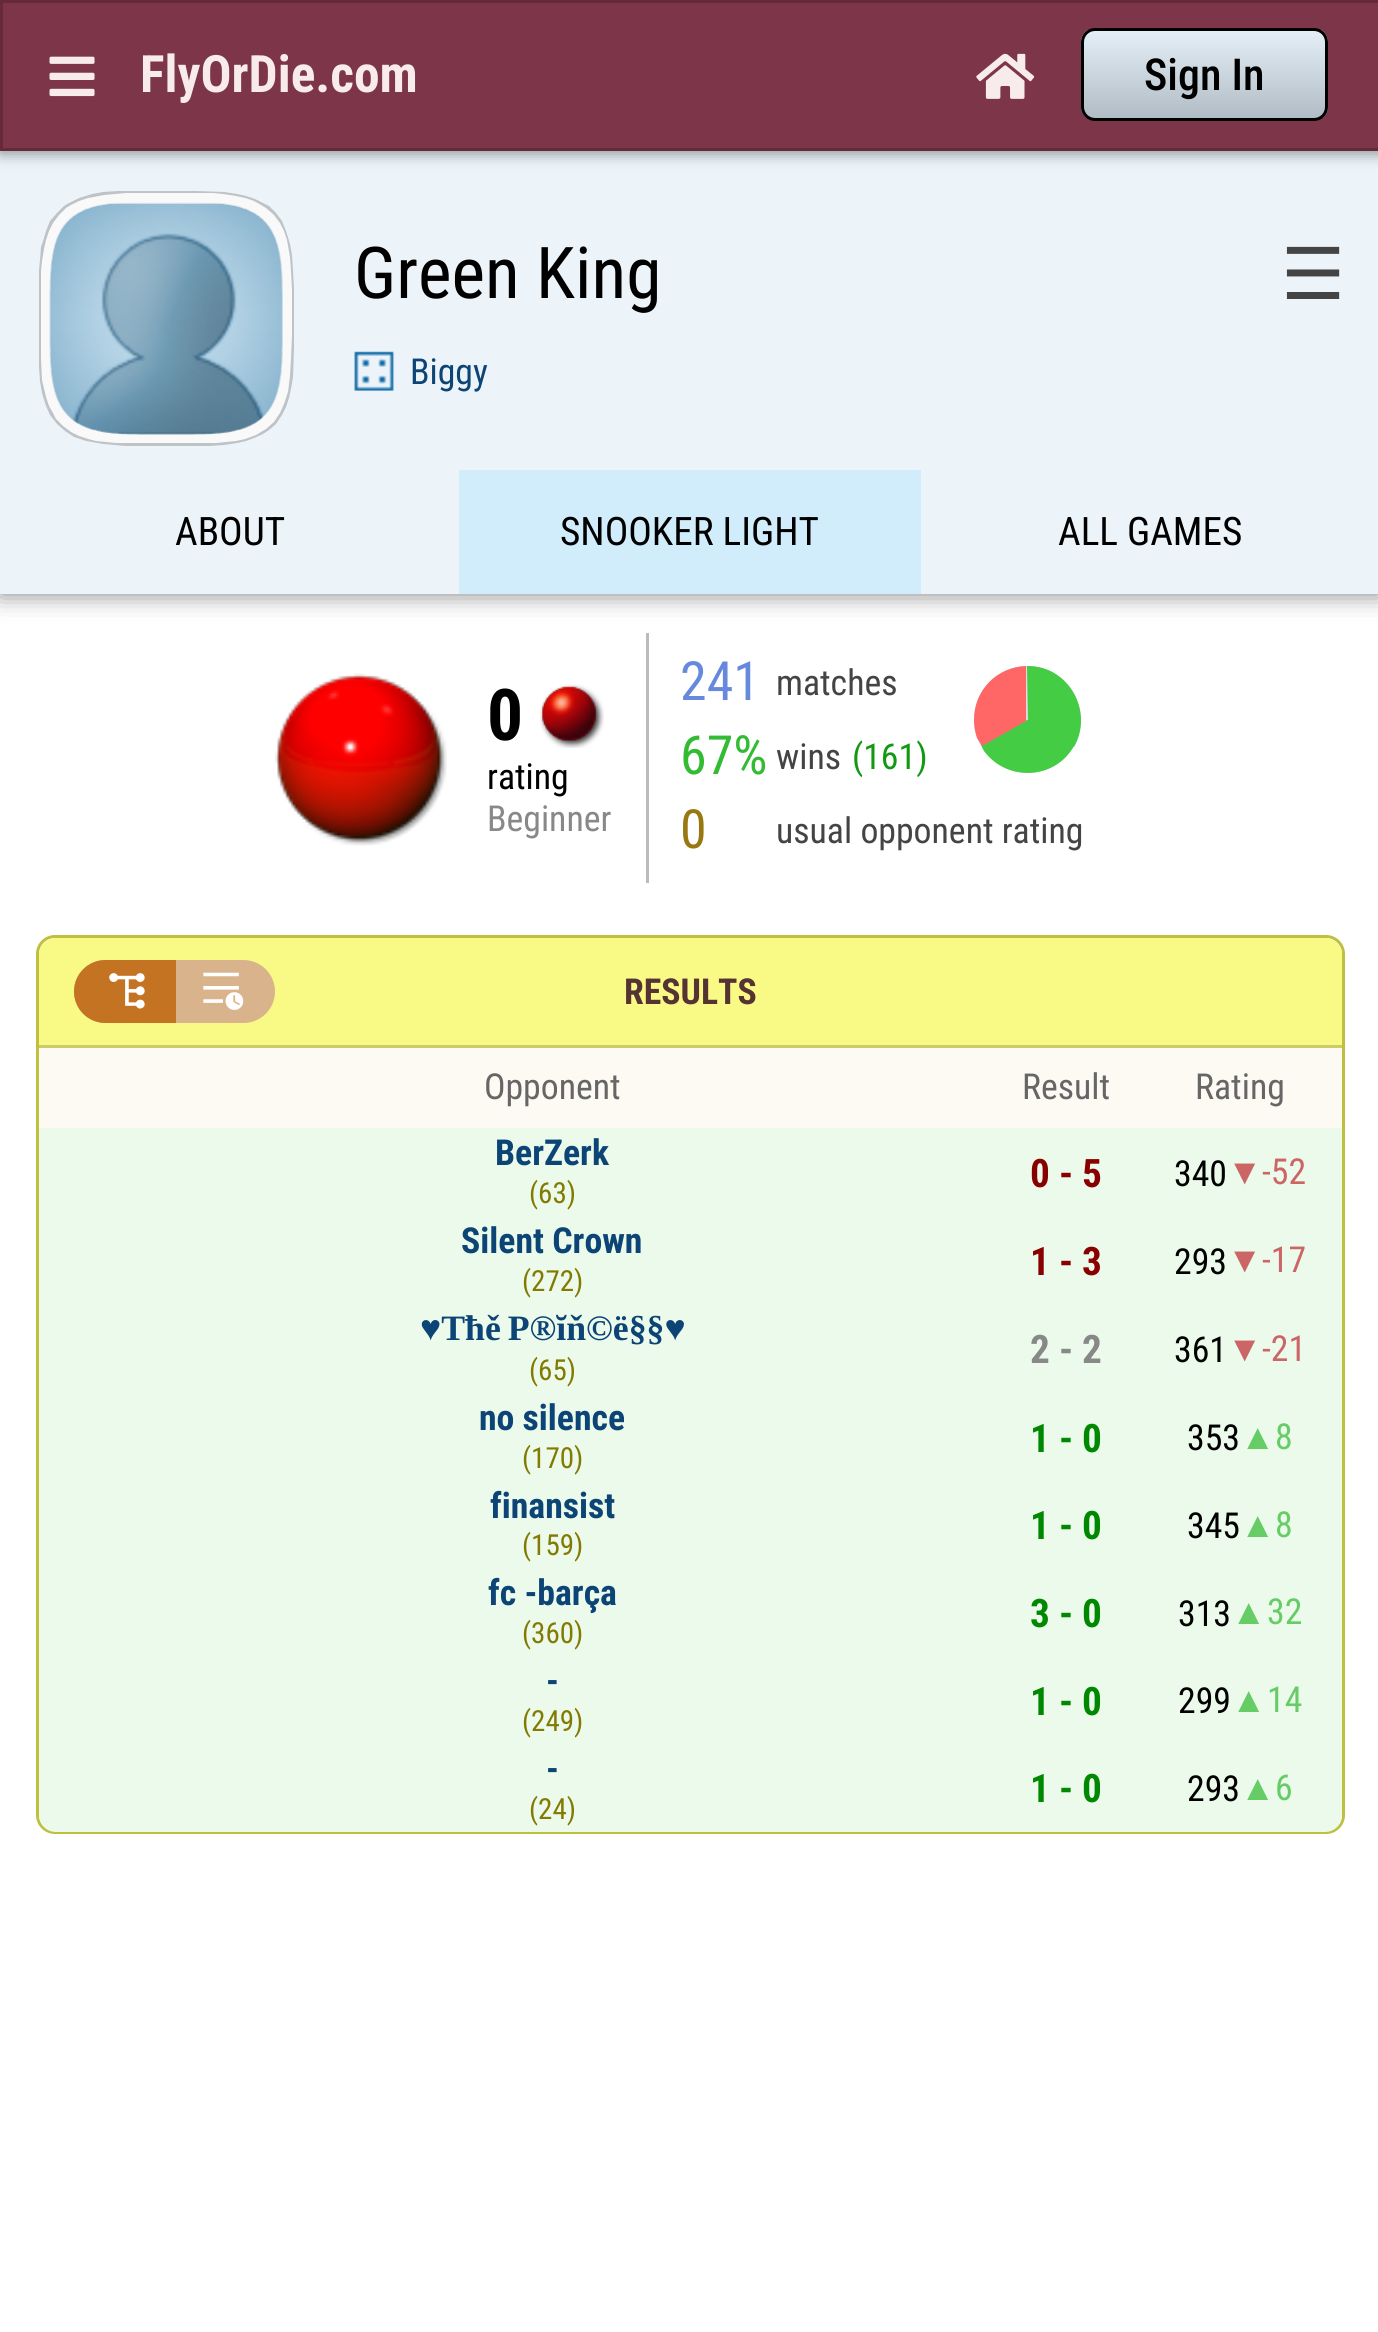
import math
import cairocffi as cairo

surface = cairo.ImageSurface(cairo.FORMAT_RGB24, 1378, 2332)
cr = cairo.Context(surface)
options = cairo.FontOptions()
options.set_hint_metrics(cairo.HINT_METRICS_OFF)
options.set_hint_style(cairo.HINT_STYLE_NONE)
cr.set_font_options(options)
cr.set_miter_limit(4)


def use_color(code):
    cr.set_source_rgb(*(v / 255 for v in bytes.fromhex(code[-6:])))


def spaced_text(x, y, s, letter, word):
    cr.move_to(x, y)
    for ch in s:
        cr.show_text(ch)
        cr.rel_move_to(letter + word * (ch == ' '), 0)


def round_rect(x, y, w, h, r):
    cr.new_sub_path()
    for i, (u, v) in enumerate([(x + w - r, y + h - r), (x + r, y + h - r), (x + r, y + r), (x + w - r, y + r)]):
        cr.arc(u, v, r, i * math.pi / 2, (i + 1) * math.pi / 2)
    cr.close_path()


def shadow(x, y, w, h, r, blur, alpha):
    cr.push_group_with_content(cairo.CONTENT_ALPHA)
    cr.set_operator(cairo.OPERATOR_SOURCE)
    for i in range(15, -16, -2):
        e = blur * i / 6
        if min(w, h) + 2 * e > 0:
            cr.set_source_rgba(0, 0, 0, alpha * math.erfc((i - 1) / 8.5) / 2)
            round_rect(x - e, y - e, w + 2 * e, h + 2 * e, max(0, min(r + e + blur * .6, min(w, h) / 2 + e)))
            cr.fill()
    cr.mask(cr.pop_group())


def picture(path, x, y, w, h):
    cr.save()
    cr.set_source_surface(cairo.ImageSurface.create_from_png(path), x, y)
    cr.rectangle(x, y, w, h)
    cr.fill()
    cr.restore()


use_color("#ffffff")
cr.paint()
use_color("#000000")
shadow(0, 149, 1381, 445, 0, 12.5, 0.5)
use_color("#ecf4f9")
cr.rectangle(0, 151, 1378, 443)
cr.fill()
use_color("#000000")
shadow(0, 3, 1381, 151, 0, 7, 0.4)
use_color("#7d354a")
cr.rectangle(1.5, 1.5, 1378, 148)
cr.fill_preserve()
use_color("#642a3b")
cr.set_line_width(3)
cr.stroke()
picture("img1.png", 49, 56, 46, 41)
cr.select_font_face("Roboto Condensed", cairo.FONT_SLANT_NORMAL, cairo.FONT_WEIGHT_BOLD)
cr.set_font_size(51.5)
use_color("#f8ebeb")
cr.move_to(140, 92)
cr.show_text("FlyOrDie.com")
picture("img2.png", 976, 53, 59, 46)
cr.save()
round_rect(1081, 28, 247, 93, 14)
cr.clip()
gradient = cairo.LinearGradient(1205, 30, 1205, 118)
gradient.add_color_stop_rgba(0, 1, 1, 1, 1)
gradient.add_color_stop_rgba(1, 0.741, 0.741, 0.741, 1)
cr.set_source(gradient)
cr.rectangle(1081, 30, 247, 88)
cr.fill()
cr.restore()
cr.set_source_rgba(0.541, 0.725, 0.859, 0.23)
round_rect(1082.5, 29.5, 244, 90, 12.5)
cr.fill_preserve()
use_color("#000000")
cr.stroke()
cr.select_font_face("Roboto Condensed Medium")
cr.set_font_size(44)
cr.move_to(1144, 90)
cr.show_text("Sign In")
use_color("#bdc3c7")
cr.new_path()
cr.move_to(39, 367)
cr.line_to(39, 270)
cr.line_to(40, 260)
cr.line_to(41, 247)
cr.line_to(44, 238)
cr.line_to(46, 231)
cr.line_to(50, 221)
cr.line_to(57, 213)
cr.line_to(64, 206)
cr.line_to(69, 203)
cr.line_to(79, 198)
cr.line_to(92, 194)
cr.line_to(103, 192)
cr.line_to(118, 191)
cr.line_to(137, 191)
cr.line_to(195, 191)
cr.line_to(224, 192)
cr.line_to(237, 194)
cr.line_to(246, 196)
cr.line_to(255, 199)
cr.line_to(263, 203)
cr.line_to(269, 206)
cr.line_to(276, 213)
cr.line_to(282, 221)
cr.line_to(286, 231)
cr.line_to(290, 244)
cr.line_to(292, 255)
cr.line_to(293, 271)
cr.line_to(294, 289)
cr.line_to(294, 348)
cr.line_to(293, 377)
cr.line_to(291, 389)
cr.line_to(289, 398)
cr.line_to(286, 407)
cr.line_to(282, 415)
cr.line_to(276, 424)
cr.line_to(269, 430)
cr.line_to(263, 434)
cr.line_to(254, 438)
cr.line_to(246, 441)
cr.line_to(237, 443)
cr.line_to(224, 445)
cr.line_to(208, 446)
cr.line_to(125, 446)
cr.line_to(103, 444)
cr.line_to(86, 441)
cr.line_to(74, 437)
cr.line_to(65, 431)
cr.line_to(57, 424)
cr.line_to(50, 415)
cr.line_to(46, 406)
cr.line_to(42, 393)
cr.line_to(40, 381)
cr.close_path()
cr.fill()
use_color("#f9f9f9")
cr.new_path()
cr.move_to(292, 335)
cr.line_to(292, 290)
cr.line_to(291, 271)
cr.line_to(290, 257)
cr.line_to(287, 240)
cr.line_to(284, 231)
cr.line_to(280, 223)
cr.line_to(274, 215)
cr.line_to(266, 208)
cr.line_to(261, 205)
cr.line_to(254, 201)
cr.line_to(245, 198)
cr.line_to(236, 196)
cr.line_to(223, 194)
cr.line_to(213, 193)
cr.line_to(126, 193)
cr.line_to(104, 195)
cr.line_to(88, 198)
cr.line_to(79, 201)
cr.line_to(71, 205)
cr.line_to(66, 208)
cr.line_to(59, 215)
cr.line_to(53, 223)
cr.line_to(49, 231)
cr.line_to(46, 240)
cr.line_to(44, 249)
cr.line_to(42, 261)
cr.line_to(41, 271)
cr.line_to(41, 359)
cr.line_to(42, 380)
cr.line_to(46, 397)
cr.line_to(49, 406)
cr.line_to(53, 413)
cr.line_to(56, 419)
cr.line_to(63, 426)
cr.line_to(71, 432)
cr.line_to(79, 436)
cr.line_to(88, 439)
cr.line_to(96, 441)
cr.line_to(116, 443)
cr.line_to(216, 443)
cr.line_to(236, 441)
cr.line_to(245, 439)
cr.line_to(256, 435)
cr.line_to(266, 429)
cr.line_to(274, 422)
cr.line_to(280, 413)
cr.line_to(284, 404)
cr.line_to(288, 392)
cr.line_to(290, 376)
cr.line_to(291, 359)
cr.close_path()
cr.fill()
picture("img3.png", 49, 202, 234, 233)
cr.select_font_face("Roboto Condensed")
cr.set_font_size(71.5)
use_color("#000000")
cr.move_to(354, 298)
cr.show_text("Green King")
cr.select_font_face("DejaVu Sans")
use_color("#444444")
cr.move_to(1281, 299)
cr.show_text("☰")
picture("img4.png", 354, 351, 40, 40)
cr.select_font_face("Roboto Condensed")
cr.set_font_size(35.75)
use_color("#0c4476")
cr.move_to(410, 384)
cr.show_text("Biggy")
use_color("#d1ecfa")
cr.rectangle(459, 470, 462, 124)
cr.fill()
cr.set_font_size(39.25)
use_color("#000000")
cr.move_to(175, 545)
cr.show_text("ABOUT")
cr.move_to(560, 545)
cr.show_text("SNOOKER LIGHT")
cr.move_to(1058, 545)
cr.show_text("ALL GAMES")
picture("img5.png", 275, 673, 172, 173)
cr.select_font_face("Roboto Condensed", cairo.FONT_SLANT_NORMAL, cairo.FONT_WEIGHT_BOLD)
cr.set_font_size(71.5)
cr.move_to(487, 740)
cr.show_text("0")
picture("img6.png", 540, 684, 64, 64)
cr.select_font_face("Roboto Condensed")
cr.set_font_size(35.75)
cr.move_to(487, 789)
cr.show_text("rating")
use_color("#888888")
cr.move_to(487, 831)
cr.show_text("Beginner")
use_color("#bbbbbb")
cr.rectangle(646, 633, 3, 250)
cr.fill()
cr.set_font_size(54)
use_color("#6688dd")
cr.move_to(680, 700)
cr.show_text("241")
cr.set_font_size(35.75)
use_color("#444444")
cr.move_to(776, 695)
cr.show_text("matches")
use_color("#dddddd")
cr.new_path()
cr.arc(1027.5, 719.5, 53.5, 0, 2 * math.pi)
cr.fill()
use_color("#44cc44")
cr.new_path()
cr.move_to(1028, 666)
cr.curve_to(1069, 666, 1094, 712, 1074, 747)
cr.line_to(1028, 719)
cr.line_to(1027, 666)
cr.close_path()
cr.fill()
cr.new_path()
cr.move_to(1029, 719)
cr.line_to(1074, 746)
cr.curve_to(1055, 780, 1007, 782, 984, 751)
cr.line_to(981, 745)
cr.close_path()
cr.fill()
use_color("#ff6666")
cr.new_path()
cr.move_to(1026, 666)
cr.curve_to(997, 667, 974, 690, 974, 720)
cr.curve_to(974, 726, 975, 732, 977, 738)
cr.line_to(982, 746)
cr.line_to(1026, 721)
cr.close_path()
cr.fill()
cr.set_font_size(54)
use_color("#33bb33")
cr.move_to(680, 774)
cr.show_text("67%")
cr.set_font_size(35.75)
use_color("#444444")
cr.move_to(776, 769)
cr.show_text("wins")
use_color("#119911")
cr.move_to(852, 769)
cr.show_text("(161)")
cr.set_font_size(54)
use_color("#997711")
cr.move_to(680, 848)
cr.show_text("0")
cr.set_font_size(35.75)
use_color("#444444")
cr.move_to(776, 843)
cr.show_text("usual opponent rating")
round_rect(37.5, 936.5, 1306, 896, 17.5)
use_color("#bfbf40")
cr.stroke()
use_color("#f9f986")
cr.new_path()
cr.move_to(56, 938)
cr.line_to(1325, 938)
cr.curve_to(1334.5, 938, 1342, 945.5, 1342, 955)
cr.line_to(1342, 1048)
cr.line_to(39, 1048)
cr.line_to(39, 955)
cr.curve_to(39, 945.5, 46.5, 938, 56, 938)
cr.close_path()
cr.fill()
use_color("#cccc66")
cr.rectangle(39, 1045, 1303, 3)
cr.fill()
use_color("#d9b38c")
round_rect(74, 960, 201, 63, 31.5)
cr.fill()
use_color("#c37322")
cr.new_path()
cr.move_to(105.5, 960)
cr.line_to(176, 960)
cr.line_to(176, 1023)
cr.line_to(105.5, 1023)
cr.curve_to(88, 1023, 74, 1009, 74, 991.5)
cr.curve_to(74, 974, 88, 960, 105.5, 960)
cr.close_path()
cr.fill()
picture("img7.png", 109, 973, 36, 36)
picture("img8.png", 203, 972, 41, 38)
cr.select_font_face("Roboto Condensed", cairo.FONT_SLANT_NORMAL, cairo.FONT_WEIGHT_BOLD)
use_color("#553333")
cr.move_to(624, 1004)
cr.show_text("RESULTS")
use_color("#fcfaf3")
cr.rectangle(39, 1048, 1303, 80)
cr.fill()
cr.select_font_face("Roboto Condensed")
use_color("#666666")
cr.move_to(484, 1099)
cr.show_text("Opponent")
cr.move_to(1022, 1099)
cr.show_text("Result")
cr.move_to(1195, 1099)
cr.show_text("Rating")
use_color("#ebfaeb")
cr.rectangle(39, 1128, 1303, 90)
cr.fill()
cr.select_font_face("Roboto Condensed", cairo.FONT_SLANT_NORMAL, cairo.FONT_WEIGHT_BOLD)
use_color("#0c4476")
cr.move_to(495, 1165)
cr.show_text("BerZerk")
cr.select_font_face("Roboto Condensed")
cr.set_font_size(29)
use_color("#827a01")
cr.move_to(529, 1203)
cr.show_text("(63)")
cr.select_font_face("Roboto Condensed", cairo.FONT_SLANT_NORMAL, cairo.FONT_WEIGHT_BOLD)
cr.set_font_size(39.25)
use_color("#880000")
cr.move_to(1030, 1187)
cr.show_text("0 - 5")
cr.select_font_face("Roboto Condensed")
cr.set_font_size(35.75)
use_color("#000000")
cr.move_to(1174, 1186)
cr.show_text("340")
cr.select_font_face("Liberation Serif")
use_color("#cc6666")
cr.move_to(1227, 1184)
cr.show_text("▼")
cr.select_font_face("Roboto Condensed")
cr.move_to(1262, 1184)
cr.show_text("-52")
use_color("#ebfaeb")
cr.rectangle(39, 1218, 1303, 88)
cr.fill()
cr.select_font_face("Roboto Condensed", cairo.FONT_SLANT_NORMAL, cairo.FONT_WEIGHT_BOLD)
use_color("#0c4476")
cr.move_to(461, 1253)
cr.show_text("Silent Crown")
cr.select_font_face("Roboto Condensed")
cr.set_font_size(29)
use_color("#827a01")
cr.move_to(522, 1291)
cr.show_text("(272)")
cr.select_font_face("Roboto Condensed", cairo.FONT_SLANT_NORMAL, cairo.FONT_WEIGHT_BOLD)
cr.set_font_size(39.25)
use_color("#880000")
cr.move_to(1030, 1275)
cr.show_text("1 - 3")
cr.select_font_face("Roboto Condensed")
cr.set_font_size(35.75)
use_color("#000000")
cr.move_to(1174, 1274)
cr.show_text("293")
cr.select_font_face("Liberation Serif")
use_color("#cc6666")
cr.move_to(1227, 1272)
cr.show_text("▼")
cr.select_font_face("Roboto Condensed")
cr.move_to(1262, 1272)
cr.show_text("-17")
use_color("#ebfaeb")
cr.rectangle(39, 1306, 1303, 88)
cr.fill()
cr.select_font_face("Liberation Serif", cairo.FONT_SLANT_NORMAL, cairo.FONT_WEIGHT_BOLD)
use_color("#0c4476")
spaced_text(420, 1340, "♥Τħě P®ĭň©ë§§♥", 0, -2)
cr.select_font_face("Roboto Condensed")
cr.set_font_size(29)
use_color("#827a01")
cr.move_to(529, 1380)
cr.show_text("(65)")
cr.select_font_face("Roboto Condensed", cairo.FONT_SLANT_NORMAL, cairo.FONT_WEIGHT_BOLD)
cr.set_font_size(39.25)
use_color("#888888")
cr.move_to(1030, 1363)
cr.show_text("2 - 2")
cr.select_font_face("Roboto Condensed")
cr.set_font_size(35.75)
use_color("#000000")
cr.move_to(1174, 1362)
cr.show_text("361")
cr.select_font_face("Liberation Serif")
use_color("#cc6666")
cr.move_to(1227, 1361)
cr.show_text("▼")
cr.select_font_face("Roboto Condensed")
cr.move_to(1262, 1361)
cr.show_text("-21")
use_color("#ebfaeb")
cr.rectangle(39, 1394, 1303, 88)
cr.fill()
cr.save()
cr.rectangle(479, 1397, 145, 41)
cr.clip()
cr.select_font_face("Roboto Condensed", cairo.FONT_SLANT_NORMAL, cairo.FONT_WEIGHT_BOLD)
use_color("#0c4476")
cr.move_to(479, 1430)
cr.show_text("no silence")
cr.restore()
cr.set_font_size(29)
use_color("#827a01")
cr.move_to(522, 1468)
cr.show_text("(170)")
cr.select_font_face("Roboto Condensed", cairo.FONT_SLANT_NORMAL, cairo.FONT_WEIGHT_BOLD)
cr.set_font_size(39.25)
use_color("#008800")
cr.move_to(1030, 1452)
cr.show_text("1 - 0")
cr.select_font_face("Roboto Condensed")
cr.set_font_size(35.75)
use_color("#000000")
cr.move_to(1187, 1450)
cr.show_text("353")
cr.select_font_face("Liberation Serif")
use_color("#66cc66")
cr.move_to(1240, 1449)
cr.show_text("▲")
cr.select_font_face("Roboto Condensed")
cr.move_to(1275, 1449)
cr.show_text("8")
use_color("#ebfaeb")
cr.rectangle(39, 1482, 1303, 88)
cr.fill()
cr.select_font_face("Roboto Condensed", cairo.FONT_SLANT_NORMAL, cairo.FONT_WEIGHT_BOLD)
use_color("#0c4476")
cr.move_to(490, 1518)
cr.show_text("finansist")
cr.select_font_face("Roboto Condensed")
cr.set_font_size(29)
use_color("#827a01")
cr.move_to(522, 1555)
cr.show_text("(159)")
cr.select_font_face("Roboto Condensed", cairo.FONT_SLANT_NORMAL, cairo.FONT_WEIGHT_BOLD)
cr.set_font_size(39.25)
use_color("#008800")
cr.move_to(1030, 1539)
cr.show_text("1 - 0")
cr.select_font_face("Roboto Condensed")
cr.set_font_size(35.75)
use_color("#000000")
cr.move_to(1187, 1538)
cr.show_text("345")
cr.select_font_face("Liberation Serif")
use_color("#66cc66")
cr.move_to(1240, 1537)
cr.show_text("▲")
cr.select_font_face("Roboto Condensed")
cr.move_to(1275, 1537)
cr.show_text("8")
use_color("#ebfaeb")
cr.rectangle(39, 1570, 1303, 88)
cr.fill()
cr.select_font_face("Roboto Condensed", cairo.FONT_SLANT_NORMAL, cairo.FONT_WEIGHT_BOLD)
use_color("#0c4476")
cr.move_to(488, 1605)
cr.show_text("fc -barça")
cr.select_font_face("Roboto Condensed")
cr.set_font_size(29)
use_color("#827a01")
cr.move_to(522, 1643)
cr.show_text("(360)")
cr.select_font_face("Roboto Condensed", cairo.FONT_SLANT_NORMAL, cairo.FONT_WEIGHT_BOLD)
cr.set_font_size(39.25)
use_color("#008800")
cr.move_to(1030, 1627)
cr.show_text("3 - 0")
cr.select_font_face("Roboto Condensed")
cr.set_font_size(35.75)
use_color("#000000")
cr.move_to(1178, 1626)
cr.show_text("313")
cr.select_font_face("Liberation Serif")
use_color("#66cc66")
cr.move_to(1231, 1624)
cr.show_text("▲")
cr.select_font_face("Roboto Condensed")
cr.move_to(1267, 1624)
cr.show_text("32")
use_color("#ebfaeb")
cr.rectangle(39, 1658, 1303, 86)
cr.fill()
cr.select_font_face("Roboto Condensed", cairo.FONT_SLANT_NORMAL, cairo.FONT_WEIGHT_BOLD)
use_color("#0c4476")
cr.move_to(546, 1693)
cr.show_text("-")
cr.select_font_face("Roboto Condensed")
cr.set_font_size(29)
use_color("#827a01")
cr.move_to(522, 1731)
cr.show_text("(249)")
cr.select_font_face("Roboto Condensed", cairo.FONT_SLANT_NORMAL, cairo.FONT_WEIGHT_BOLD)
cr.set_font_size(39.25)
use_color("#008800")
cr.move_to(1030, 1715)
cr.show_text("1 - 0")
cr.select_font_face("Roboto Condensed")
cr.set_font_size(35.75)
use_color("#000000")
cr.move_to(1178, 1713)
cr.show_text("299")
cr.select_font_face("Liberation Serif")
use_color("#66cc66")
cr.move_to(1231, 1712)
cr.show_text("▲")
cr.select_font_face("Roboto Condensed")
cr.move_to(1267, 1712)
cr.show_text("14")
use_color("#ebfaeb")
cr.new_path()
cr.move_to(39, 1744)
cr.line_to(110, 1744)
cr.line_to(110, 1832)
cr.line_to(56, 1832)
cr.curve_to(46.5, 1832, 39, 1824.5, 39, 1815)
cr.close_path()
cr.fill()
cr.rectangle(110, 1744, 1029, 88)
cr.fill()
cr.select_font_face("Roboto Condensed", cairo.FONT_SLANT_NORMAL, cairo.FONT_WEIGHT_BOLD)
use_color("#0c4476")
cr.move_to(546, 1781)
cr.show_text("-")
cr.select_font_face("Roboto Condensed")
cr.set_font_size(29)
use_color("#827a01")
cr.move_to(529, 1819)
cr.show_text("(24)")
cr.select_font_face("Roboto Condensed", cairo.FONT_SLANT_NORMAL, cairo.FONT_WEIGHT_BOLD)
cr.set_font_size(39.25)
use_color("#008800")
cr.move_to(1030, 1802)
cr.show_text("1 - 0")
use_color("#ebfaeb")
cr.new_path()
cr.move_to(1139, 1744)
cr.line_to(1342, 1744)
cr.line_to(1342, 1815)
cr.curve_to(1342, 1824.5, 1334.5, 1832, 1325, 1832)
cr.line_to(1139, 1832)
cr.close_path()
cr.fill()
cr.select_font_face("Roboto Condensed")
cr.set_font_size(35.75)
use_color("#000000")
cr.move_to(1187, 1801)
cr.show_text("293")
cr.select_font_face("Liberation Serif")
use_color("#66cc66")
cr.move_to(1240, 1800)
cr.show_text("▲")
cr.select_font_face("Roboto Condensed")
cr.move_to(1275, 1800)
cr.show_text("6")
surface.write_to_png("result.png")
